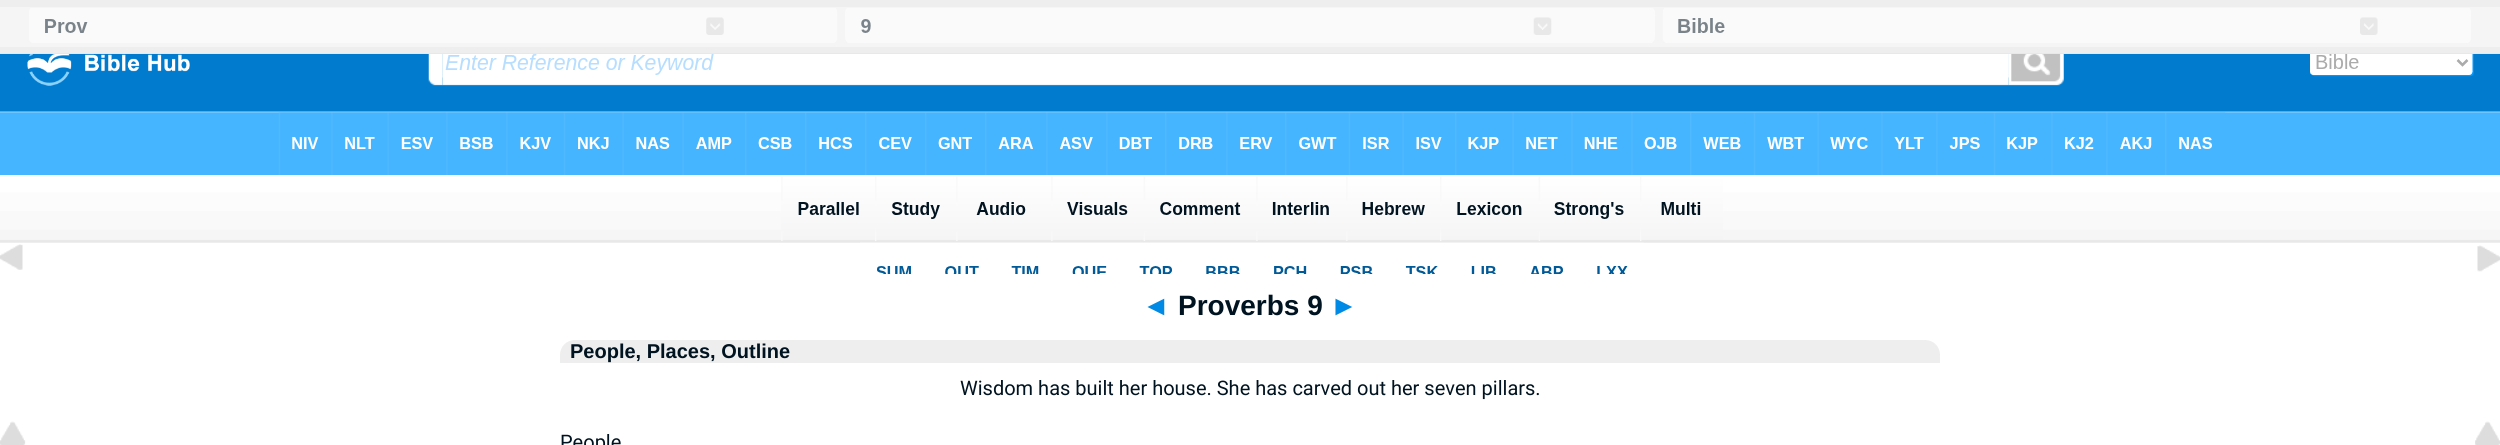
import math
import cairocffi as cairo

surface = cairo.ImageSurface(cairo.FORMAT_RGB24, 2500, 445)
cr = cairo.Context(surface)
options = cairo.FontOptions()
options.set_hint_metrics(cairo.HINT_METRICS_OFF)
options.set_hint_style(cairo.HINT_STYLE_NONE)
cr.set_font_options(options)
cr.set_miter_limit(4)


def use_color(code):
    cr.set_source_rgb(*(v / 255 for v in bytes.fromhex(code[-6:])))


def picture(path, x, y, w, h):
    cr.save()
    cr.set_source_surface(cairo.ImageSurface.create_from_png(path), x, y)
    cr.rectangle(x, y, w, h)
    cr.fill()
    cr.restore()


use_color("#ffffff")
cr.paint()
use_color("#e8e8e8")
cr.rectangle(0, 53, 2500, 1)
cr.fill()
use_color("#eeeeee")
cr.rectangle(0, 0, 2500, 53)
cr.fill()
use_color("#f5f5f5")
cr.rectangle(0, 7, 2500, 40)
cr.fill()
picture("img1.png", 29, 8, 2442, 35)
picture("img2.png", 0, 54, 2500, 220)
picture("img3.png", 0, 244, 23, 26)
picture("img4.png", 2477, 245, 23, 27)
cr.select_font_face("Liberation Sans", cairo.FONT_SLANT_NORMAL, cairo.FONT_WEIGHT_BOLD)
cr.set_font_size(28)
use_color("#008ae6")
cr.move_to(1142, 315)
cr.show_text("◄")
use_color("#001320")
cr.move_to(1178, 315)
cr.show_text("Proverbs 9")
use_color("#008ae6")
cr.move_to(1330, 315)
cr.show_text("►")
picture("img5.png", 0, 421, 26, 24)
use_color("#eeeeee")
cr.new_path()
cr.move_to(575, 340)
cr.line_to(1925, 340)
cr.curve_to(1933.5, 340, 1940, 346.5, 1940, 355)
cr.line_to(1940, 363)
cr.line_to(560, 363)
cr.line_to(560, 355)
cr.curve_to(560, 346.5, 566.5, 340, 575, 340)
cr.close_path()
cr.fill()
cr.set_font_size(20)
use_color("#001320")
cr.move_to(570, 358)
cr.show_text("People, Places, Outline")
cr.select_font_face("Roboto")
cr.move_to(960, 395)
cr.show_text("Wisdom has built her house. She has carved out her seven pillars.")
cr.move_to(560, 449)
cr.show_text("People")
picture("img6.png", 2475, 421, 25, 24)
surface.write_to_png("result.png")
